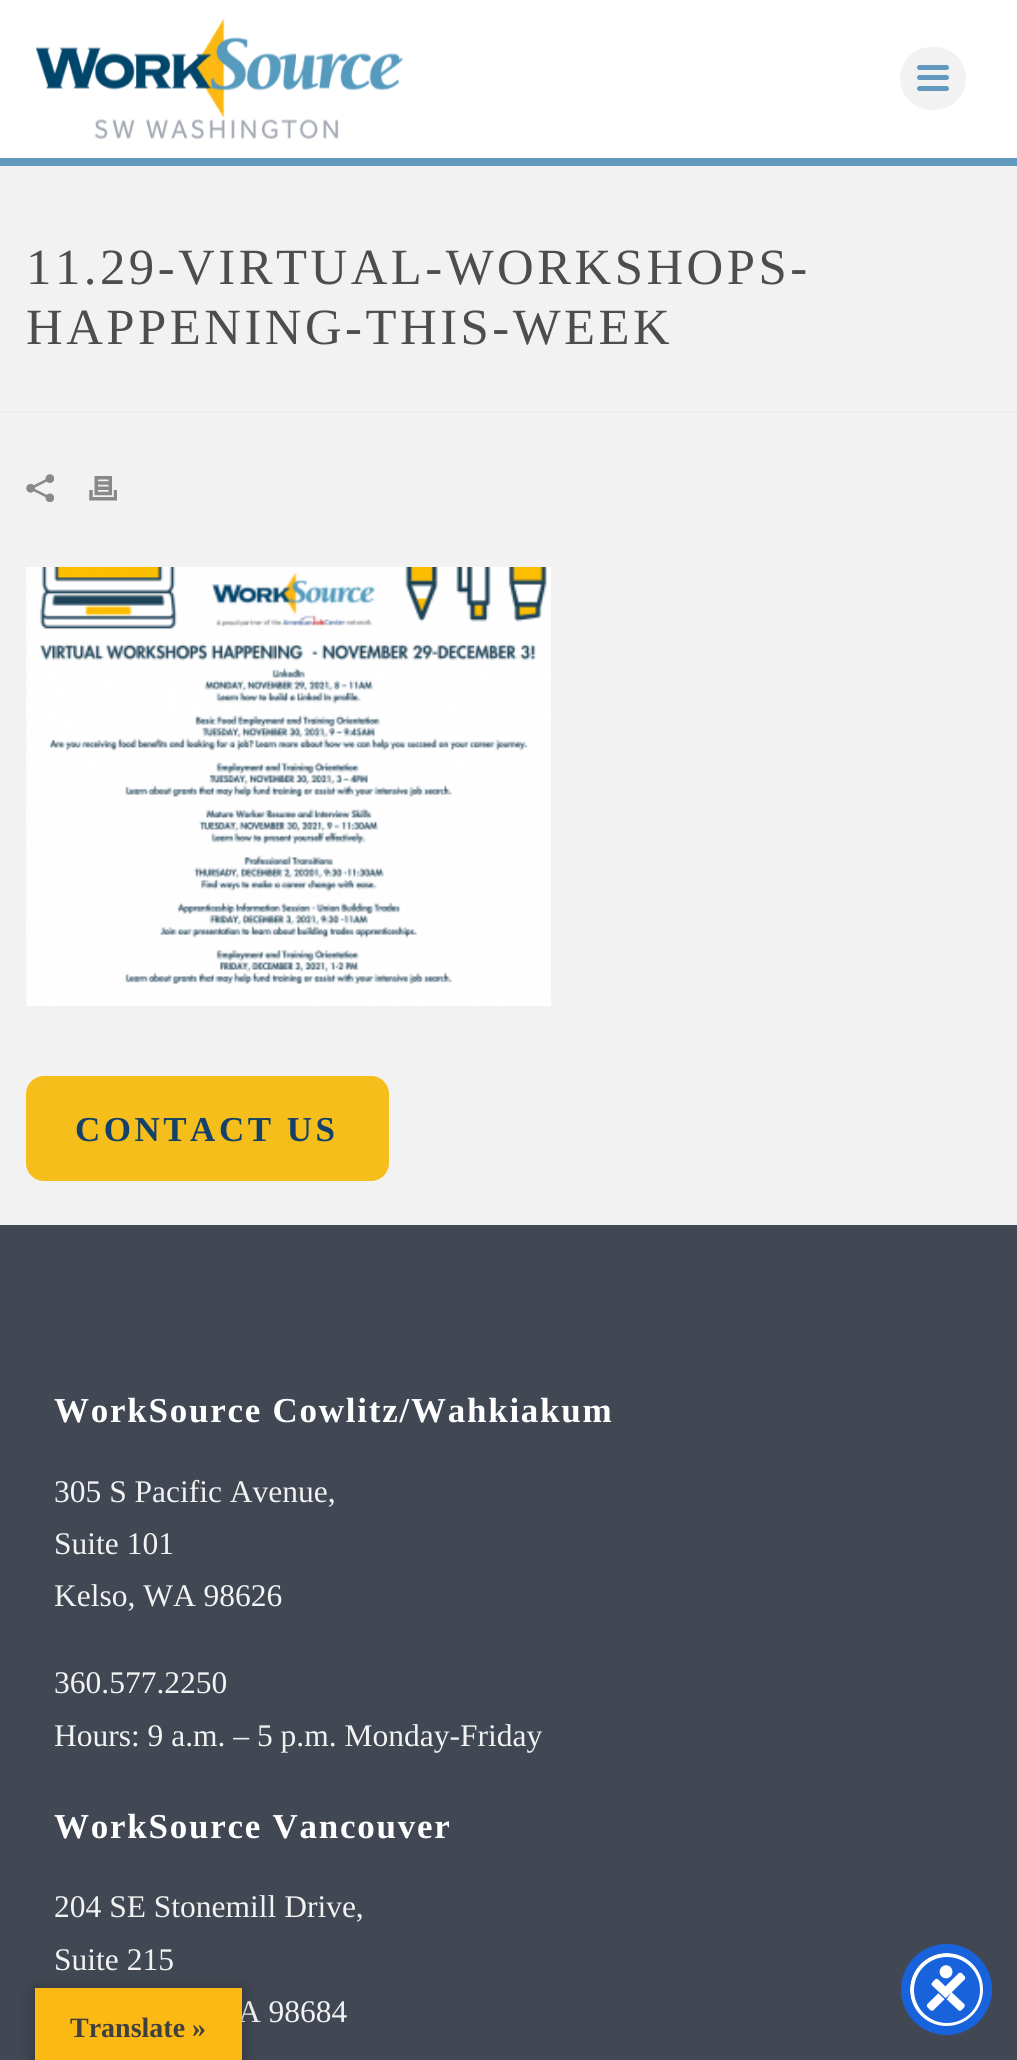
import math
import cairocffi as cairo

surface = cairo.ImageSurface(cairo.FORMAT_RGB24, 1017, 2060)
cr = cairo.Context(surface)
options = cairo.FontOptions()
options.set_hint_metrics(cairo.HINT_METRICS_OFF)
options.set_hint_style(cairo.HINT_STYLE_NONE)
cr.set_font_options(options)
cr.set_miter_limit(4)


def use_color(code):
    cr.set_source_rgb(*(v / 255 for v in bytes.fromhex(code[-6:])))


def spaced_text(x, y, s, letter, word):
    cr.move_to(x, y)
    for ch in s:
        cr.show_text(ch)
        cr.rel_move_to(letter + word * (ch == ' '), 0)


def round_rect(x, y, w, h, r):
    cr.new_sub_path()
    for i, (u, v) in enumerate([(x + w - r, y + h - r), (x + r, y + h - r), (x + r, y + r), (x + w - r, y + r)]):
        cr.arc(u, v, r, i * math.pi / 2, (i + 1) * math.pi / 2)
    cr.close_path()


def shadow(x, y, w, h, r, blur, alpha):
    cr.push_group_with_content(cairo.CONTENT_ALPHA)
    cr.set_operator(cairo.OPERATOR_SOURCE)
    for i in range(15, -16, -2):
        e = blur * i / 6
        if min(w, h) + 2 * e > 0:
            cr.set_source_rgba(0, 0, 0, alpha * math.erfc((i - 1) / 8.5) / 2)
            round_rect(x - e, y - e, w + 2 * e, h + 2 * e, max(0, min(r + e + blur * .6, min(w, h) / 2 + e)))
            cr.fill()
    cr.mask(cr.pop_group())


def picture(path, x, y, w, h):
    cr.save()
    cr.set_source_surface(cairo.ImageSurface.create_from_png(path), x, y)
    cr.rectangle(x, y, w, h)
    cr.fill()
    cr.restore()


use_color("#424853")
cr.paint()
use_color("#f2f2f2")
cr.rectangle(0, 166, 1017, 245)
cr.fill()
use_color("#ededed")
cr.rectangle(0, 411, 1017, 2)
cr.fill()
use_color("#6299be")
cr.rectangle(0, 158, 1017, 8)
cr.fill()
use_color("#ffffff")
cr.rectangle(0, 0, 1017, 158)
cr.fill()
picture("img1.png", 36, 18, 367, 122)
use_color("#f2f2f2")
round_rect(900, 47, 66, 63, 31.5)
cr.fill()
use_color("#6299be")
round_rect(917, 65, 32, 5, 2.5)
cr.fill()
round_rect(917, 75, 32, 5, 2.5)
cr.fill()
round_rect(917, 86, 32, 5, 2.5)
cr.fill()
cr.select_font_face("Liberation Serif")
cr.set_font_size(50.75)
use_color("#4d4d4d")
spaced_text(26, 284, "11.29-VIRTUAL-WORKSHOPS-", 3.5, 0)
spaced_text(26, 344, "HAPPENING-THIS-WEEK", 3.5, 0)
use_color("#f2f2f2")
cr.rectangle(0, 413, 1017, 812)
cr.fill()
picture("img2.png", 26, 474, 28, 28)
picture("img3.png", 89, 476, 28, 25)
picture("img4.png", 26, 567, 525, 439)
use_color("#f6be1a")
round_rect(26, 1076, 363, 105, 18)
cr.fill()
cr.select_font_face("Liberation Serif", cairo.FONT_SLANT_NORMAL, cairo.FONT_WEIGHT_BOLD)
cr.set_font_size(35)
use_color("#134169")
spaced_text(75, 1141, "CONTACT US", 3.5, 0)
use_color("#ffffff")
spaced_text(54, 1422, "WorkSource Cowlitz/Wahkiakum", 1.75, 0)
cr.select_font_face("Liberation Serif")
cr.set_font_size(31.5)
use_color("#f2f2f2")
cr.move_to(54, 1502)
cr.show_text("305 S Pacific Avenue,")
cr.move_to(54, 1554)
cr.show_text("Suite 101")
cr.move_to(54, 1606)
cr.show_text("Kelso, WA 98626")
cr.move_to(54, 1693)
cr.show_text("360.577.2250")
cr.move_to(54, 1746)
cr.show_text("Hours: 9 a.m. – 5 p.m. Monday-Friday")
cr.select_font_face("Liberation Serif", cairo.FONT_SLANT_NORMAL, cairo.FONT_WEIGHT_BOLD)
cr.set_font_size(35)
use_color("#ffffff")
spaced_text(54, 1838, "WorkSource Vancouver", 1.75, 0)
cr.select_font_face("Liberation Serif")
cr.set_font_size(31.5)
use_color("#f2f2f2")
cr.move_to(54, 1917)
cr.show_text("204 SE Stonemill Drive,")
cr.move_to(54, 1970)
cr.show_text("Suite 215")
cr.move_to(238, 2022)
cr.show_text("A 98684")
use_color("#5d6494")
shadow(910, 1957, 74, 73, 36.5, 3.5, 0.2)
use_color("#1863dc")
cr.arc(947, 1990, 35, 0, 2 * math.pi)
cr.fill_preserve()
use_color("#ffffff")
cr.set_line_width(4)
cr.stroke()
cr.arc(946.5, 1989.5, 41, 0, 2 * math.pi)
use_color("#1863dc")
cr.set_line_width(9)
cr.stroke()
picture("img5.png", 926, 1965, 40, 46)
use_color("#000000")
shadow(35, 1988, 207, 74, 0, 8, 0.3)
use_color("#fdb913")
cr.rectangle(35, 1988, 207, 72)
cr.fill()
cr.select_font_face("Liberation Serif", cairo.FONT_SLANT_NORMAL, cairo.FONT_WEIGHT_BOLD)
cr.set_font_size(28)
use_color("#404040")
cr.move_to(70, 2037)
cr.show_text("Translate »")
surface.write_to_png("result.png")
